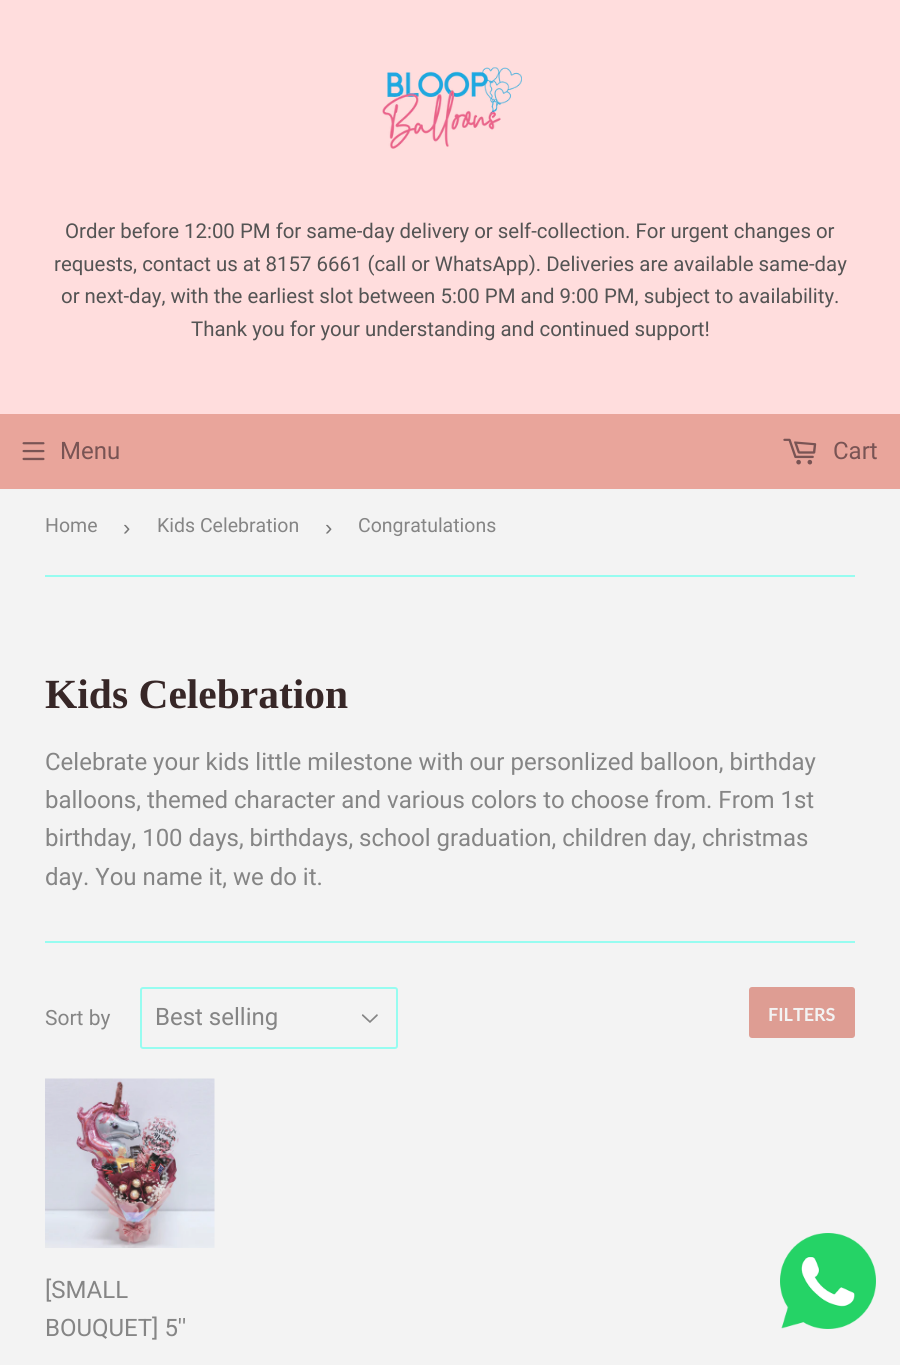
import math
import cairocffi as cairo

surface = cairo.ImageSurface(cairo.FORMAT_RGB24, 900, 1365)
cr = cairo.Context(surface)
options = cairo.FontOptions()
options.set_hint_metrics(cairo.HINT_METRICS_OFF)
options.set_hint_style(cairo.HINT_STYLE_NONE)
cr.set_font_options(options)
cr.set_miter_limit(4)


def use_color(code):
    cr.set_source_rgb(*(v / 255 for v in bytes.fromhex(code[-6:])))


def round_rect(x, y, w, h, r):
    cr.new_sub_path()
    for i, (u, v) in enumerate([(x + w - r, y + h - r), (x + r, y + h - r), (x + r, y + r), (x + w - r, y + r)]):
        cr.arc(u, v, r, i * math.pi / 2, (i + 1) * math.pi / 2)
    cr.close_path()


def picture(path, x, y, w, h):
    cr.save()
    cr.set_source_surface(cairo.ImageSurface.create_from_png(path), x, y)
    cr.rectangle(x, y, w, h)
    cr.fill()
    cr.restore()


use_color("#f3f3f3")
cr.paint()
use_color("#ffdddd")
cr.rectangle(0, 0, 900, 414)
cr.fill()
picture("img1.png", 382, 67, 140, 82)
cr.select_font_face("Roboto")
cr.set_font_size(20.4)
use_color("#545454")
cr.move_to(65, 238)
cr.show_text("Order before 12:00 PM for same-day delivery or self-collection. For urgent changes or")
cr.move_to(54, 271)
cr.show_text("requests, contact us at 8157 6661 (call or WhatsApp). Deliveries are available same-day")
cr.move_to(61, 303)
cr.show_text("or next-day, with the earliest slot between 5:00 PM and 9:00 PM, subject to availability.")
cr.move_to(191, 336)
cr.show_text("Thank you for your understanding and continued support!")
use_color("#e9a59b")
cr.rectangle(0, 414, 900, 75)
cr.fill()
picture("img2.png", 22, 442, 23, 19)
cr.set_font_size(24)
use_color("#795454")
cr.move_to(60, 459)
cr.show_text("Menu")
picture("img3.png", 783, 438, 34, 27)
cr.move_to(833, 459)
cr.show_text("Cart")
use_color("#96fcf0")
cr.rectangle(45, 575, 810, 2)
cr.fill()
cr.set_font_size(19.5)
use_color("#858585")
cr.move_to(45, 532)
cr.show_text("Home")
cr.select_font_face("Liberation Sans")
cr.set_font_size(22)
use_color("#767676")
cr.move_to(123, 535)
cr.show_text("›")
cr.select_font_face("Roboto")
cr.set_font_size(19.5)
use_color("#858585")
cr.move_to(157, 532)
cr.show_text("Kids Celebration")
cr.select_font_face("Liberation Sans")
cr.set_font_size(22)
use_color("#767676")
cr.move_to(325, 535)
cr.show_text("›")
cr.select_font_face("Roboto")
cr.set_font_size(19.5)
use_color("#858585")
cr.move_to(358, 532)
cr.show_text("Congratulations")
cr.select_font_face("Liberation Serif", cairo.FONT_SLANT_NORMAL, cairo.FONT_WEIGHT_BOLD)
cr.set_font_size(41.5)
use_color("#372727")
cr.move_to(45, 708)
cr.show_text("Kids Celebration")
cr.select_font_face("Roboto")
cr.set_font_size(24)
use_color("#858585")
cr.move_to(45, 770)
cr.show_text("Celebrate your kids little milestone with our personlized balloon, birthday")
cr.move_to(45, 808)
cr.show_text("balloons, themed character and various colors to choose from. From 1st")
cr.move_to(45, 846)
cr.show_text("birthday, 100 days, birthdays, school graduation, children day, christmas")
cr.move_to(45, 885)
cr.show_text("day. You name it, we do it.")
use_color("#96fcf0")
cr.rectangle(45, 941, 810, 2)
cr.fill()
cr.set_font_size(21)
use_color("#858585")
cr.move_to(45, 1025)
cr.show_text("Sort by")
picture("img4.png", 361, 1014, 17, 9)
round_rect(141, 988, 256, 60, 2)
use_color("#96fcf0")
cr.stroke()
cr.set_font_size(24)
use_color("#858585")
cr.move_to(155, 1025)
cr.show_text("Best selling")
use_color("#de9d93")
round_rect(749, 987, 106, 51, 3)
cr.fill()
cr.select_font_face("Lato", cairo.FONT_SLANT_NORMAL, cairo.FONT_WEIGHT_BOLD)
cr.set_font_size(18)
use_color("#f3f3f3")
cr.move_to(768, 1021)
cr.show_text("FILTERS")
picture("img5.png", 45, 1078, 170, 170)
cr.select_font_face("Roboto")
cr.set_font_size(24)
use_color("#858585")
cr.move_to(45, 1298)
cr.show_text("[SMALL")
cr.move_to(45, 1336)
cr.show_text("BOUQUET] 5''")
picture("img6.png", 780, 1233, 96, 96)
surface.write_to_png("result.png")
